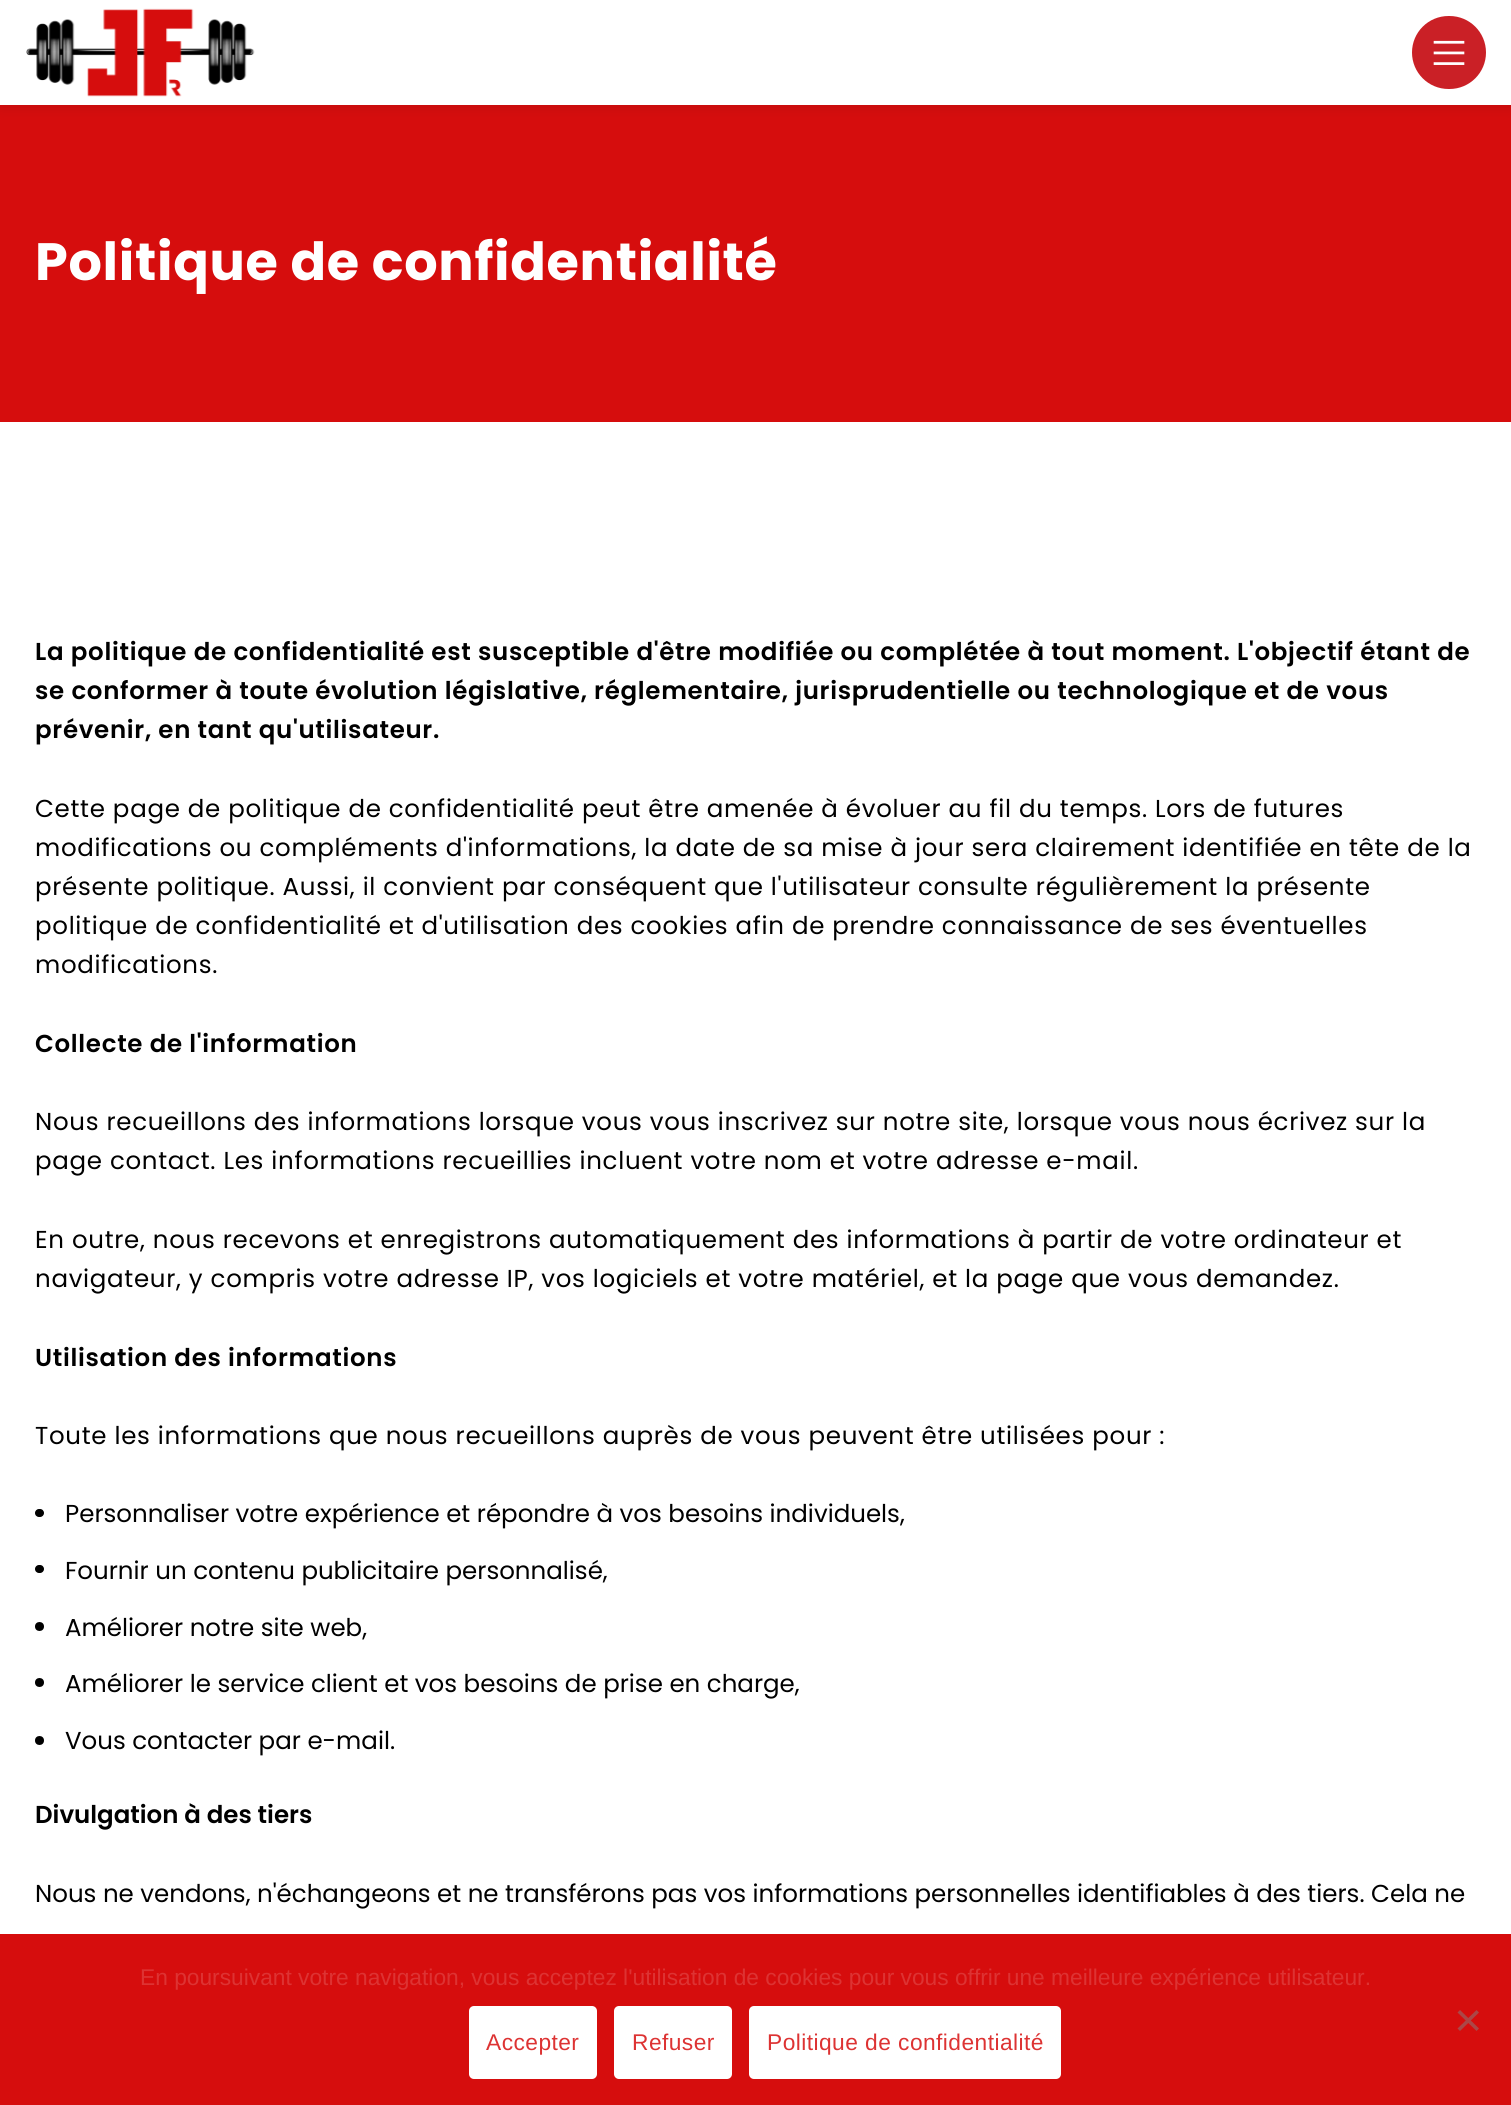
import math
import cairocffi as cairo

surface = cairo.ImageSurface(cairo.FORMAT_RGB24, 1511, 2105)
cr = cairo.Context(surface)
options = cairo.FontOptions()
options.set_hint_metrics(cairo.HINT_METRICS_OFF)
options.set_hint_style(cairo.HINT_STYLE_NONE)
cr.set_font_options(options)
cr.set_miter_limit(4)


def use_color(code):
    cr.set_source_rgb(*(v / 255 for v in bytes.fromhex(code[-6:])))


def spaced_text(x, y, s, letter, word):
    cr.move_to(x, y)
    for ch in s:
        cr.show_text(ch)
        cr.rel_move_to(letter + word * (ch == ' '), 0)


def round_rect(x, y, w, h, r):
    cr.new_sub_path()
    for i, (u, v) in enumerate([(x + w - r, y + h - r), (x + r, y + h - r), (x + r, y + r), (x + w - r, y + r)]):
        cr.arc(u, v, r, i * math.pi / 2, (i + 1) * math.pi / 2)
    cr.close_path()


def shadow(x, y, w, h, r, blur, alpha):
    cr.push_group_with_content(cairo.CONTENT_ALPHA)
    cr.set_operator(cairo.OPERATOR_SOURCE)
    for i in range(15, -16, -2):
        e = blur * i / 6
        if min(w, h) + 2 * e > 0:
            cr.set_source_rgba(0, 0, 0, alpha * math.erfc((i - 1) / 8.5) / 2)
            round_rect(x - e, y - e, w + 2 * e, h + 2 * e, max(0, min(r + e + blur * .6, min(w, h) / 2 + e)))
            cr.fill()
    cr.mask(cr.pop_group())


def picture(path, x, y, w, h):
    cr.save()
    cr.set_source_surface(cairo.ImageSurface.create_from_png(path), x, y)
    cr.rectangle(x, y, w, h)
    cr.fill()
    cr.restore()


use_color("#ffffff")
cr.paint()
use_color("#d60d0d")
cr.rectangle(0, 105, 1511, 317)
cr.fill()
use_color("#000000")
shadow(0, 2, 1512, 105, 0, 7, 0.1)
use_color("#ffffff")
cr.rectangle(0, 0, 1511, 105)
cr.fill()
picture("img1.png", 26, 8, 229, 89)
use_color("#ca2026")
round_rect(1412, 16, 74, 73, 36.5)
cr.fill()
picture("img2.png", 1433, 40, 32, 25)
cr.select_font_face("Poppins", cairo.FONT_SLANT_NORMAL, cairo.FONT_WEIGHT_BOLD)
cr.set_font_size(52.5)
use_color("#ffffff")
spaced_text(35, 280, "Politique de confidentialité", 0.7, 0)
cr.select_font_face("Poppins SemiBold")
cr.set_font_size(24.5)
use_color("#000000")
spaced_text(35, 660, "La politique de confidentialité est susceptible d'être modifiée ou complétée à tout moment. L'objectif étant de", 0.7, 0)
spaced_text(35, 699, "se conformer à toute évolution législative, réglementaire, jurisprudentielle ou technologique et de vous", 0.7, 0)
spaced_text(35, 738, "prévenir, en tant qu'utilisateur.", 0.7, 0)
cr.select_font_face("Poppins")
spaced_text(35, 817, "Cette page de politique de confidentialité peut être amenée à évoluer au fil du temps. Lors de futures", 0.7, 0)
spaced_text(35, 856, "modifications ou compléments d'informations, la date de sa mise à jour sera clairement identifiée en tête de la", 0.7, 0)
spaced_text(35, 895, "présente politique. Aussi, il convient par conséquent que l'utilisateur consulte régulièrement la présente", 0.7, 0)
spaced_text(35, 934, "politique de confidentialité et d'utilisation des cookies afin de prendre connaissance de ses éventuelles", 0.7, 0)
spaced_text(35, 973, "modifications.", 0.7, 0)
cr.select_font_face("Poppins SemiBold")
spaced_text(35, 1052, "Collecte de l'information", 0.7, 0)
cr.select_font_face("Poppins")
spaced_text(35, 1130, "Nous recueillons des informations lorsque vous vous inscrivez sur notre site, lorsque vous nous écrivez sur la", 0.7, 0)
spaced_text(35, 1169, "page contact. Les informations recueillies incluent votre nom et votre adresse e-mail.", 0.7, 0)
spaced_text(35, 1248, "En outre, nous recevons et enregistrons automatiquement des informations à partir de votre ordinateur et", 0.7, 0)
spaced_text(35, 1287, "navigateur, y compris votre adresse IP, vos logiciels et votre matériel, et la page que vous demandez.", 0.7, 0)
cr.select_font_face("Poppins SemiBold")
spaced_text(35, 1366, "Utilisation des informations", 0.7, 0)
cr.select_font_face("Poppins")
spaced_text(35, 1444, "Toute les informations que nous recueillons auprès de vous peuvent être utilisées pour :", 0.7, 0)
round_rect(35, 1509, 9, 8, 4)
cr.fill()
cr.move_to(65, 1522)
cr.show_text("Personnaliser votre expérience et répondre à vos besoins individuels,")
round_rect(35, 1565, 9, 8, 4)
cr.fill()
cr.move_to(65, 1579)
cr.show_text("Fournir un contenu publicitaire personnalisé,")
cr.new_path()
cr.arc(39.5, 1626.5, 4.5, 0, 2 * math.pi)
cr.fill()
cr.move_to(65, 1636)
cr.show_text("Améliorer notre site web,")
cr.new_path()
cr.arc(39.5, 1682.5, 4.5, 0, 2 * math.pi)
cr.fill()
cr.move_to(65, 1692)
cr.show_text("Améliorer le service client et vos besoins de prise en charge,")
cr.new_path()
cr.arc(39.5, 1740.5, 4.5, 0, 2 * math.pi)
cr.fill()
cr.move_to(65, 1749)
cr.show_text("Vous contacter par e-mail.")
cr.select_font_face("Poppins SemiBold")
cr.move_to(35, 1823)
cr.show_text("Divulgation à des tiers")
cr.select_font_face("Poppins")
cr.move_to(35, 1902)
cr.show_text("Nous ne vendons, n'échangeons et ne transférons pas vos informations personnelles identifiables à des tiers. Cela ne")
use_color("#d60d0d")
cr.rectangle(0, 1934, 1511, 171)
cr.fill()
cr.select_font_face("Liberation Sans")
cr.set_font_size(22.75)
use_color("#dd3333")
cr.move_to(140, 1985)
cr.show_text("En poursuivant votre navigation, vous acceptez l'utilisation de cookies pour vous offrir une meilleure expérience utilisateur.")
use_color("#ab4747")
cr.new_path()
cr.move_to(1476.5, 2010)
cr.line_to(1479, 2012.5)
cr.line_to(1460, 2031)
cr.line_to(1457.5, 2028.5)
cr.close_path()
cr.fill()
cr.new_path()
cr.move_to(1457.5, 2012.5)
cr.line_to(1460, 2010)
cr.line_to(1479, 2028.5)
cr.line_to(1476.5, 2031)
cr.close_path()
cr.fill()
use_color("#ffffff")
round_rect(469, 2006, 128, 73, 5)
cr.fill()
use_color("#dd3333")
spaced_text(486, 2050, "Accepter", 0.45, 0)
use_color("#ffffff")
round_rect(614, 2006, 118, 73, 5)
cr.fill()
use_color("#dd3333")
spaced_text(632, 2050, "Refuser", 0.45, 0)
use_color("#ffffff")
round_rect(749, 2006, 312, 73, 5)
cr.fill()
use_color("#dd3333")
spaced_text(767, 2050, "Politique de confidentialité", 0.45, 0)
surface.write_to_png("result.png")
